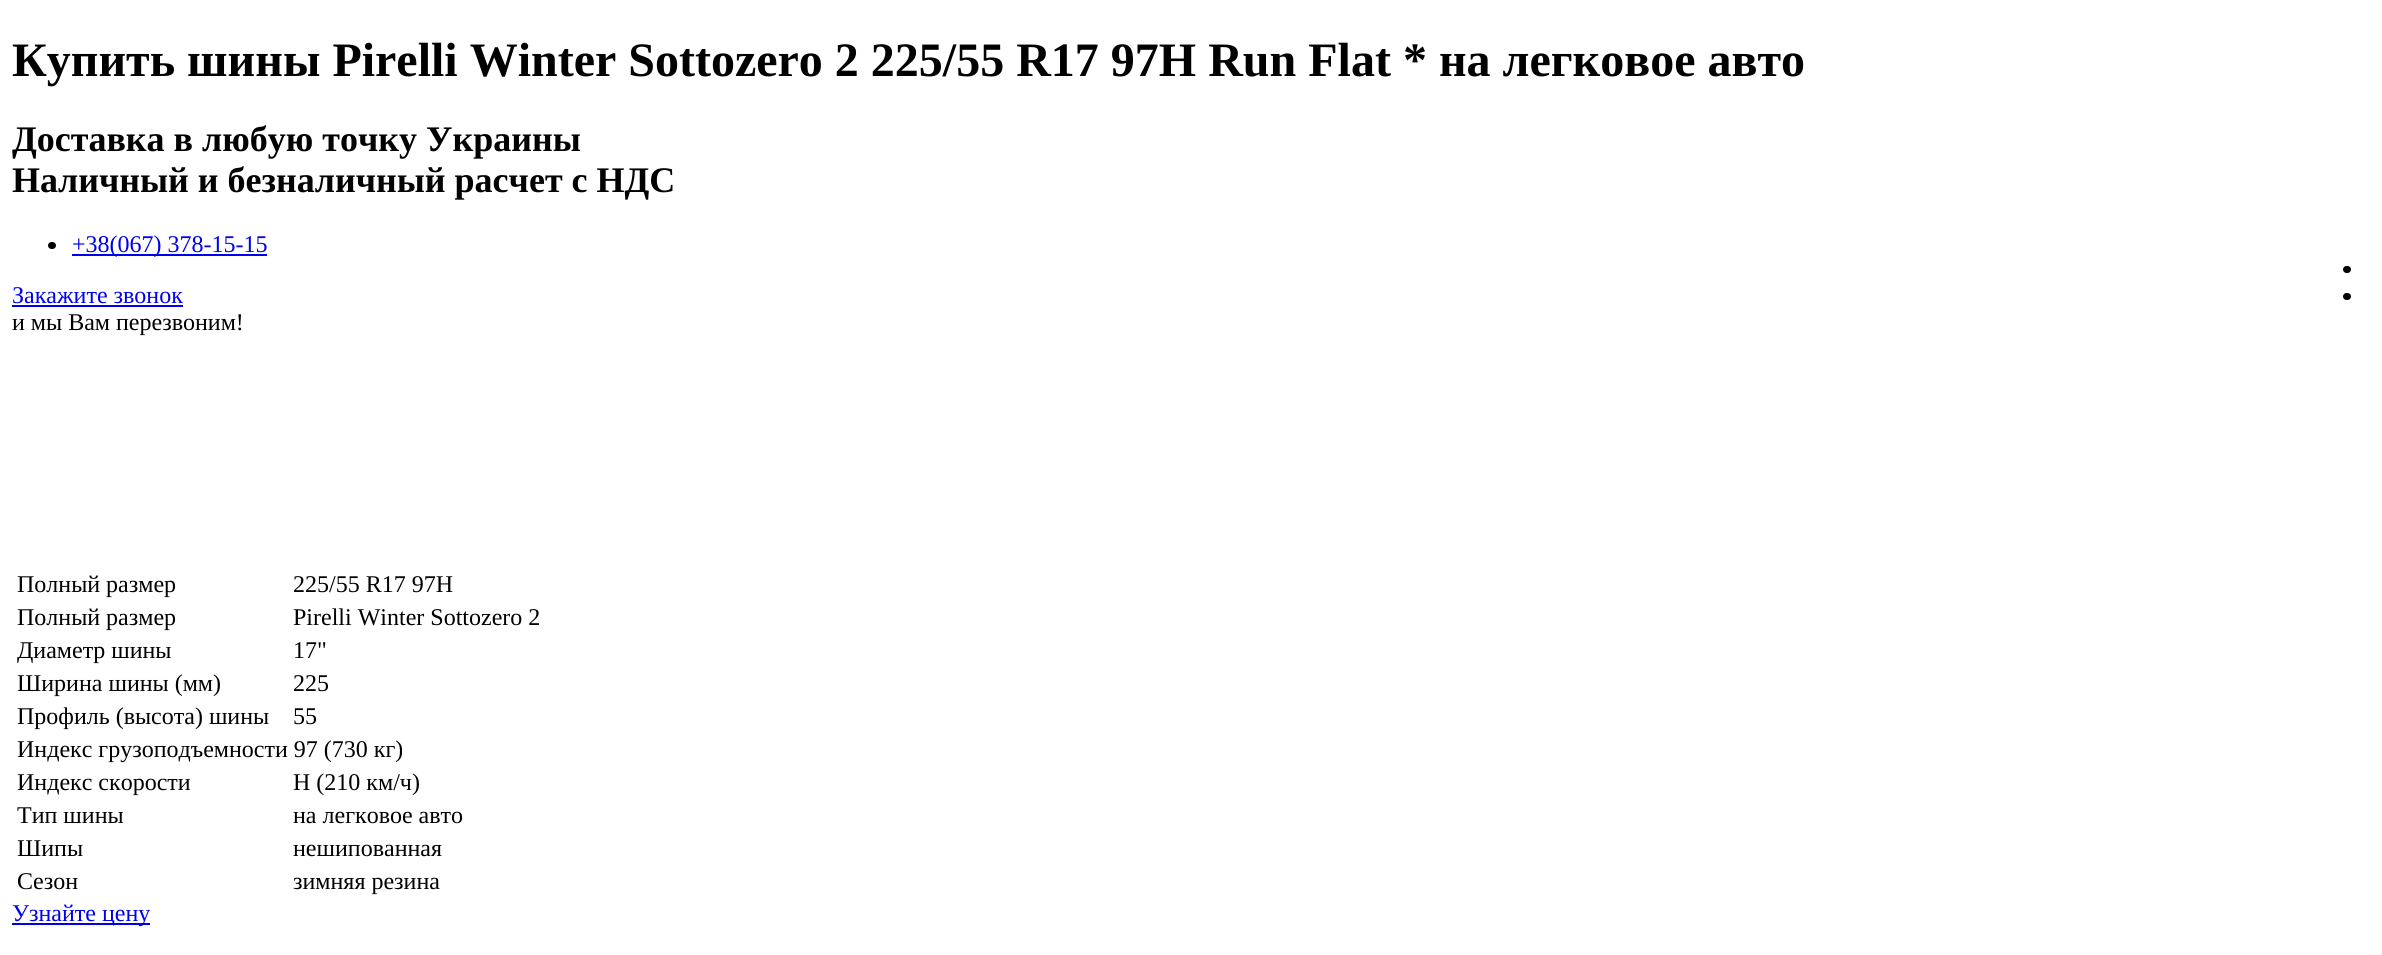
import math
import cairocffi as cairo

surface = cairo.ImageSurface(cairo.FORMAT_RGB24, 2382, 955)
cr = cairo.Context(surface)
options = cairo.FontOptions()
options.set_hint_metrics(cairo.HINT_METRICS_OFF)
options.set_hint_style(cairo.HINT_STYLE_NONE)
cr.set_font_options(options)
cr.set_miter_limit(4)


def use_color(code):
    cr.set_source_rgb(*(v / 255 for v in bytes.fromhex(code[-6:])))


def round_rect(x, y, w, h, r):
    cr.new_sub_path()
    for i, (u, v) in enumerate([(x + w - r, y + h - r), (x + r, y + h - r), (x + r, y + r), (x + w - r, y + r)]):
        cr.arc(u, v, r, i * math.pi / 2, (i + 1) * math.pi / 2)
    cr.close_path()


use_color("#ffffff")
cr.paint()
cr.select_font_face("Liberation Serif", cairo.FONT_SLANT_NORMAL, cairo.FONT_WEIGHT_BOLD)
cr.set_font_size(48)
use_color("#000000")
cr.move_to(12, 76)
cr.show_text("Купить шины Pirelli Winter Sottozero 2 225/55 R17 97H Run Flat * на легковое авто")
cr.set_font_size(36)
cr.move_to(12, 151)
cr.show_text("Доставка в любую точку Украины")
cr.move_to(12, 192)
cr.show_text("Наличный и безналичный расчет с НДС")
round_rect(48, 242, 8, 7, 3.5)
cr.fill()
use_color("#0000ee")
cr.rectangle(72, 254, 195, 2)
cr.fill()
cr.select_font_face("Liberation Serif")
cr.set_font_size(24)
cr.move_to(72, 252)
cr.show_text("+38(067) 378-15-15")
use_color("#000000")
round_rect(2343, 266, 8, 7, 3.5)
cr.fill()
round_rect(2343, 293, 8, 7, 3.5)
cr.fill()
use_color("#0000ee")
cr.move_to(12, 303)
cr.show_text("Закажите звонок")
cr.rectangle(12, 305, 171, 2)
cr.fill()
use_color("#000000")
cr.move_to(12, 330)
cr.show_text("и мы Вам перезвоним!")
cr.move_to(17, 592)
cr.show_text("Полный размер")
cr.move_to(293, 592)
cr.show_text("225/55 R17 97H")
cr.move_to(17, 625)
cr.show_text("Полный размер")
cr.move_to(293, 625)
cr.show_text("Pirelli Winter Sottozero 2")
cr.move_to(17, 658)
cr.show_text("Диаметр шины")
cr.move_to(293, 658)
cr.show_text("17\"")
cr.move_to(17, 691)
cr.show_text("Ширина шины (мм)")
cr.move_to(293, 691)
cr.show_text("225")
cr.move_to(17, 724)
cr.show_text("Профиль (высота) шины")
cr.move_to(293, 724)
cr.show_text("55")
cr.move_to(17, 757)
cr.show_text("Индекс грузоподъемности 97 (730 кг)")
cr.move_to(17, 790)
cr.show_text("Индекс скорости")
cr.move_to(293, 790)
cr.show_text("H (210 км/ч)")
cr.move_to(17, 823)
cr.show_text("Тип шины")
cr.move_to(293, 823)
cr.show_text("на легковое авто")
cr.move_to(17, 856)
cr.show_text("Шипы")
cr.move_to(293, 856)
cr.show_text("нешипованная")
cr.move_to(17, 889)
cr.show_text("Сезон")
cr.move_to(293, 889)
cr.show_text("зимняя резина")
use_color("#0000ee")
cr.rectangle(12, 923, 138, 2)
cr.fill()
cr.move_to(12, 921)
cr.show_text("Узнайте цену")
surface.write_to_png("result.png")
